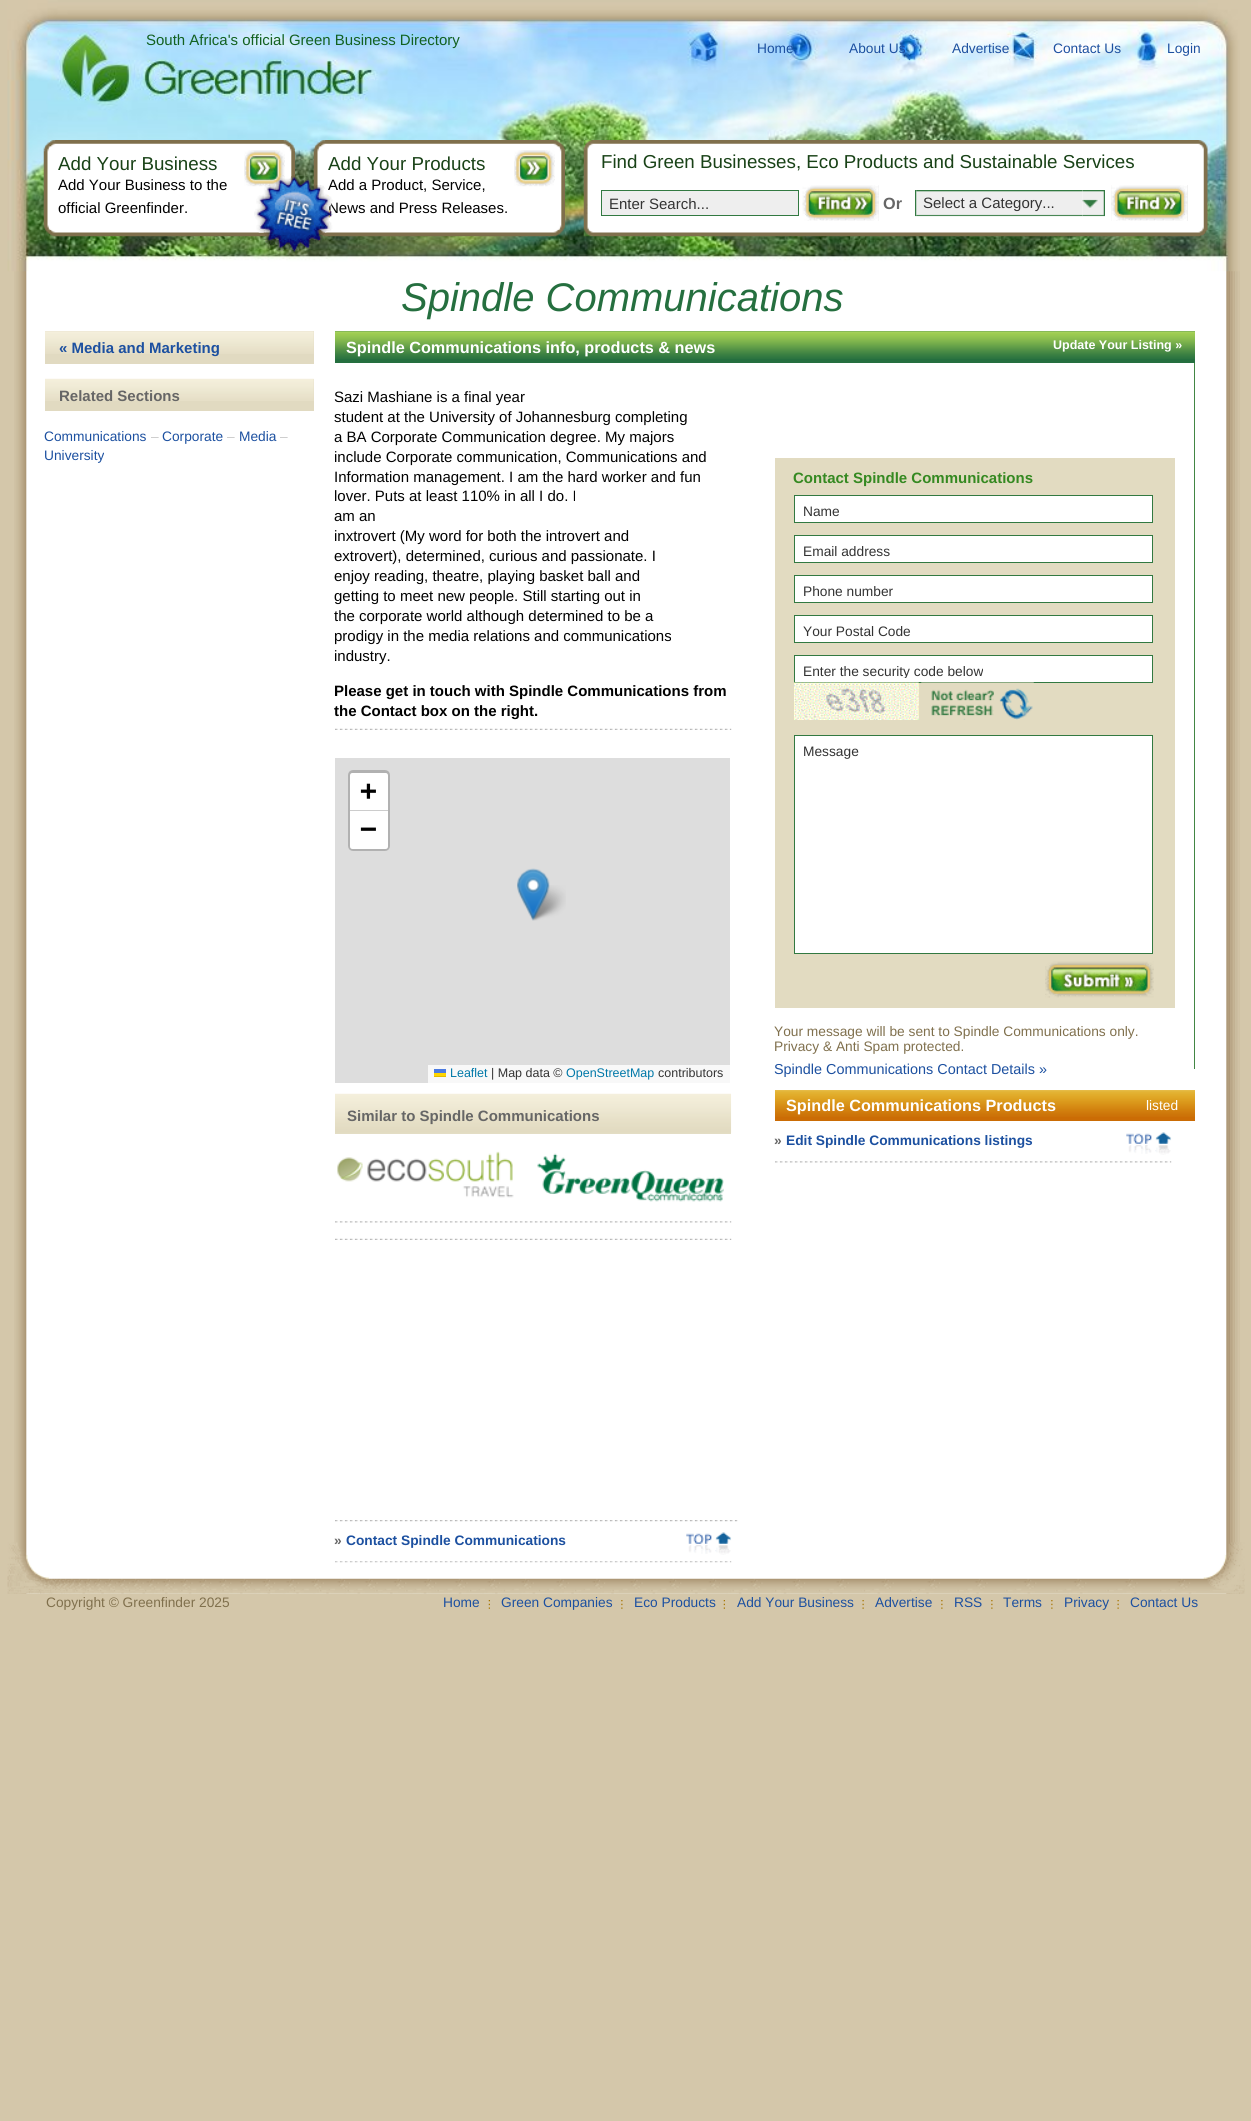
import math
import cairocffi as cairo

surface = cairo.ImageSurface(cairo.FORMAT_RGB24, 1251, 2121)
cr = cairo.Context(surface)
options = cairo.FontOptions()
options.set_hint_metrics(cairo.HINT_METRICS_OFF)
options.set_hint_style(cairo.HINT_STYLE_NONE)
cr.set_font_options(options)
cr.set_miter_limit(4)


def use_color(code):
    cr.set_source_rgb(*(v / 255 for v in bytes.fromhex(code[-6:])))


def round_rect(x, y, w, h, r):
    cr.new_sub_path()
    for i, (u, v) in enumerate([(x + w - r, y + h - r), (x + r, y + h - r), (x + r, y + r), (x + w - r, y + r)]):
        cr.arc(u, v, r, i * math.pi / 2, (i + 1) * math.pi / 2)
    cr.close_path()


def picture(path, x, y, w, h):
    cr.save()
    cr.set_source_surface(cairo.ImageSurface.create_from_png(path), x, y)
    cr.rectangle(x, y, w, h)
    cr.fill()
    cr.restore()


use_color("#d4c7aa")
cr.paint()
picture("img1.png", 14, 271, 1226, 1323)
picture("img2.png", 7, 1542, 1238, 52)
picture("img3.png", 7, 0, 1233, 272)
cr.select_font_face("Liberation Sans")
cr.set_font_size(15)
use_color("#126120")
cr.move_to(146, 45)
cr.show_text("South Africa's official Green Business Directory")
cr.set_font_size(13.75)
use_color("#1c50a0")
cr.move_to(757, 53)
cr.show_text("Home")
cr.move_to(849, 53)
cr.show_text("About Us")
cr.move_to(952, 53)
cr.show_text("Advertise")
cr.move_to(1053, 53)
cr.show_text("Contact Us")
cr.move_to(1167, 53)
cr.show_text("Login")
picture("img4.png", 43, 140, 252, 97)
cr.set_font_size(18.75)
use_color("#194217")
cr.move_to(58, 170)
cr.show_text("Add Your Business")
picture("img5.png", 244, 150, 41, 37)
cr.set_font_size(15)
use_color("#010101")
cr.move_to(58, 190)
cr.show_text("Add Your Business to the")
cr.move_to(58, 213)
cr.show_text("official Greenfinder.")
picture("img6.png", 313, 140, 252, 97)
cr.set_font_size(18.75)
use_color("#194217")
cr.move_to(328, 170)
cr.show_text("Add Your Products")
picture("img7.png", 514, 150, 41, 37)
cr.set_font_size(15)
use_color("#010101")
cr.move_to(328, 190)
cr.show_text("Add a Product, Service,")
cr.move_to(328, 213)
cr.show_text("News and Press Releases.")
picture("img8.png", 254, 175, 79, 78)
picture("img9.png", 583, 140, 625, 97)
cr.set_font_size(18.75)
use_color("#194217")
cr.move_to(601, 168)
cr.show_text("Find Green Businesses, Eco Products and Sustainable Services")
use_color("#eeeeee")
cr.rectangle(601.5, 190.5, 197, 25)
cr.fill_preserve()
use_color("#327941")
cr.set_line_width(1)
cr.stroke()
cr.set_font_size(15)
use_color("#333333")
cr.move_to(609, 209)
cr.show_text("Enter Search...")
use_color("#eeeeee")
cr.rectangle(878, 185, 1, 36)
cr.fill()
picture("img10.png", 802, 185, 77, 36)
cr.select_font_face("Liberation Sans", cairo.FONT_SLANT_NORMAL, cairo.FONT_WEIGHT_BOLD)
cr.set_font_size(16.25)
use_color("#666666")
cr.move_to(883, 209)
cr.show_text("Or")
picture("img12.png", 916, 190, 167, 27)
picture("img11.png", 915, 190, 2, 27)
cr.select_font_face("Liberation Sans")
cr.set_font_size(15)
use_color("#333333")
cr.move_to(923, 208)
cr.show_text("Select a Category...")
picture("img13.png", 1082, 190, 23, 27)
use_color("#eeeeee")
cr.rectangle(1111, 185, 77, 36)
cr.fill()
picture("img14.png", 1111, 185, 77, 36)
cr.select_font_face("Liberation Sans", cairo.FONT_SLANT_ITALIC)
cr.set_font_size(40)
use_color("#256f3f")
cr.move_to(401, 311)
cr.show_text("Spindle Communications")
use_color("#e1dac1")
cr.rectangle(45, 331, 269, 33)
cr.fill()
picture("img15.png", 45, 331, 269, 23)
cr.select_font_face("Liberation Sans", cairo.FONT_SLANT_NORMAL, cairo.FONT_WEIGHT_BOLD)
cr.set_font_size(15)
use_color("#1c50a0")
cr.move_to(59, 353)
cr.show_text("« Media and Marketing")
use_color("#e1dac1")
cr.rectangle(45, 379, 269, 32)
cr.fill()
picture("img16.png", 45, 378, 269, 23)
use_color("#666666")
cr.move_to(59, 401)
cr.show_text("Related Sections")
cr.select_font_face("Liberation Sans")
cr.set_font_size(13.75)
use_color("#1c50a0")
cr.move_to(44, 441)
cr.show_text("Communications")
use_color("#cacaca")
cr.move_to(151, 441)
cr.show_text("–")
use_color("#1c50a0")
cr.move_to(162, 441)
cr.show_text("Corporate")
use_color("#cacaca")
cr.move_to(227, 441)
cr.show_text("–")
use_color("#1c50a0")
cr.move_to(239, 441)
cr.show_text("Media")
use_color("#cacaca")
cr.move_to(280, 441)
cr.show_text("–")
use_color("#1c50a0")
cr.move_to(44, 460)
cr.show_text("University")
use_color("#256f3f")
cr.rectangle(335, 331, 860, 32)
cr.fill()
picture("img17.png", 335, 331, 860, 28)
cr.select_font_face("Liberation Sans", cairo.FONT_SLANT_NORMAL, cairo.FONT_WEIGHT_BOLD)
cr.set_font_size(16.25)
use_color("#ffffff")
cr.move_to(346, 353)
cr.show_text("Spindle Communications info, products & news")
cr.set_font_size(12.5)
cr.move_to(1053, 349)
cr.show_text("Update Your Listing »")
picture("img18.png", 335, 728, 397, 2)
cr.select_font_face("Liberation Sans")
cr.set_font_size(15)
use_color("#010101")
cr.move_to(334, 402)
cr.show_text("Sazi Mashiane is a final year")
cr.move_to(334, 422)
cr.show_text("student at the University of Johannesburg completing")
cr.move_to(334, 442)
cr.show_text("a BA Corporate Communication degree. My majors")
cr.move_to(334, 462)
cr.show_text("include Corporate communication, Communications and")
cr.move_to(334, 482)
cr.show_text("Information management. I am the hard worker and fun")
cr.move_to(334, 501)
cr.show_text("lover. Puts at least 110% in all I do. I")
cr.move_to(334, 521)
cr.show_text("am an")
cr.move_to(334, 541)
cr.show_text("inxtrovert (My word for both the introvert and")
cr.move_to(334, 561)
cr.show_text("extrovert), determined, curious and passionate. I")
cr.move_to(334, 581)
cr.show_text("enjoy reading, theatre, playing basket ball and")
cr.move_to(334, 601)
cr.show_text("getting to meet new people. Still starting out in")
cr.move_to(334, 621)
cr.show_text("the corporate world although determined to be a")
cr.move_to(334, 641)
cr.show_text("prodigy in the media relations and communications")
cr.move_to(334, 661)
cr.show_text("industry.")
cr.select_font_face("Liberation Sans", cairo.FONT_SLANT_NORMAL, cairo.FONT_WEIGHT_BOLD)
cr.move_to(334, 696)
cr.show_text("Please get in touch with Spindle Communications from")
cr.move_to(334, 716)
cr.show_text("the Contact box on the right.")
use_color("#dddddd")
cr.rectangle(335, 758, 395, 325)
cr.fill()
round_rect(349.5, 771.5, 39, 78, 3.5)
use_color("#b1b1b1")
cr.set_line_width(3)
cr.stroke()
use_color("#ffffff")
cr.new_path()
cr.move_to(352.5, 773)
cr.line_to(385.5, 773)
cr.curve_to(387, 773, 388, 774, 388, 775.5)
cr.line_to(388, 811)
cr.line_to(350, 811)
cr.line_to(350, 775.5)
cr.curve_to(350, 774, 351, 773, 352.5, 773)
cr.close_path()
cr.fill()
use_color("#cccccc")
cr.rectangle(350, 810, 38, 1)
cr.fill()
cr.select_font_face("DejaVu Sans Mono", cairo.FONT_SLANT_NORMAL, cairo.FONT_WEIGHT_BOLD)
cr.set_font_size(28)
use_color("#010101")
cr.move_to(360, 800)
cr.show_text("+")
use_color("#ffffff")
cr.new_path()
cr.move_to(350, 811)
cr.line_to(388, 811)
cr.line_to(388, 846.5)
cr.curve_to(388, 848, 387, 849, 385.5, 849)
cr.line_to(352.5, 849)
cr.curve_to(351, 849, 350, 848, 350, 846.5)
cr.close_path()
cr.fill()
use_color("#010101")
cr.move_to(360, 838)
cr.show_text("−")
use_color("#f8f8f8")
cr.rectangle(428, 1065, 302, 18)
cr.fill()
cr.select_font_face("Liberation Sans")
cr.set_font_size(12.5)
use_color("#0078a8")
cr.move_to(450, 1077)
cr.show_text("Leaflet")
use_color("#4c7be1")
cr.rectangle(434, 1069, 12, 4)
cr.fill()
use_color("#ffd500")
cr.rectangle(434, 1073, 12, 3)
cr.fill()
use_color("#e0bc00")
cr.rectangle(434, 1076, 12, 1)
cr.fill()
use_color("#333333")
cr.move_to(491, 1077)
cr.show_text("| Map data ©")
use_color("#0078a8")
cr.move_to(566, 1077)
cr.show_text("OpenStreetMap")
use_color("#333333")
cr.move_to(658, 1077)
cr.show_text("contributors")
picture("img20.png", 528, 885, 38, 36)
picture("img19.png", 517, 868, 33, 53)
picture("img21.png", 335, 1221, 397, 2)
use_color("#e3ddc4")
cr.rectangle(335, 1133, 396, 1)
cr.fill()
picture("img22.png", 335, 1093, 397, 40)
cr.select_font_face("Liberation Sans", cairo.FONT_SLANT_NORMAL, cairo.FONT_WEIGHT_BOLD)
cr.set_font_size(15)
use_color("#666666")
cr.move_to(347, 1121)
cr.show_text("Similar to Spindle Communications")
picture("img23.png", 337, 1151, 177, 47)
picture("img24.png", 537, 1153, 187, 49)
picture("img18.png", 335, 1238, 397, 2)
picture("img25.png", 335, 1520, 403, 2)
picture("img26.png", 335, 1561, 397, 2)
cr.set_font_size(13.75)
cr.move_to(334, 1545)
cr.show_text("»")
use_color("#1c50a0")
cr.move_to(346, 1545)
cr.show_text("Contact Spindle Communications")
picture("img27.png", 686, 1532, 46, 23)
use_color("#428644")
cr.rectangle(1194, 363, 1, 706)
cr.fill()
use_color("#e2dbc1")
cr.rectangle(775, 458, 400, 550)
cr.fill()
cr.set_font_size(15)
use_color("#358921")
cr.move_to(793, 483)
cr.show_text("Contact Spindle Communications")
use_color("#ffffff")
cr.rectangle(794.5, 495.5, 358, 27)
cr.fill_preserve()
use_color("#327941")
cr.set_line_width(1)
cr.stroke()
cr.select_font_face("Liberation Sans")
cr.set_font_size(13.75)
use_color("#333333")
cr.move_to(803, 516)
cr.show_text("Name")
use_color("#ffffff")
cr.rectangle(794.5, 535.5, 358, 27)
cr.fill_preserve()
use_color("#327941")
cr.stroke()
use_color("#333333")
cr.move_to(803, 556)
cr.show_text("Email address")
use_color("#ffffff")
cr.rectangle(794.5, 575.5, 358, 27)
cr.fill_preserve()
use_color("#327941")
cr.stroke()
use_color("#333333")
cr.move_to(803, 596)
cr.show_text("Phone number")
use_color("#ffffff")
cr.rectangle(794.5, 615.5, 358, 27)
cr.fill_preserve()
use_color("#327941")
cr.stroke()
use_color("#333333")
cr.move_to(803, 636)
cr.show_text("Your Postal Code")
use_color("#ffffff")
cr.rectangle(794.5, 655.5, 358, 27)
cr.fill_preserve()
use_color("#327941")
cr.stroke()
cr.save()
cr.rectangle(804, 663, 339, 15)
cr.clip()
use_color("#333333")
cr.move_to(803, 676)
cr.show_text("Enter the security code below")
cr.restore()
picture("img28.png", 794, 682, 125, 38)
picture("img29.png", 921, 682, 113, 38)
use_color("#ffffff")
cr.rectangle(794.5, 735.5, 358, 218)
cr.fill_preserve()
use_color("#327941")
cr.stroke()
use_color("#333333")
cr.move_to(803, 756)
cr.show_text("Message")
picture("img30.png", 1045, 961, 109, 37)
use_color("#80704d")
cr.move_to(774, 1036)
cr.show_text("Your message will be sent to Spindle Communications only.")
cr.move_to(774, 1051)
cr.show_text("Privacy & Anti Spam protected.")
cr.set_font_size(14.4)
use_color("#1c50a0")
cr.move_to(774, 1074)
cr.show_text("Spindle Communications Contact Details »")
use_color("#cb6c05")
cr.rectangle(775, 1117, 420, 4)
cr.fill()
picture("img31.png", 775, 1090, 420, 27)
cr.select_font_face("Liberation Sans", cairo.FONT_SLANT_NORMAL, cairo.FONT_WEIGHT_BOLD)
cr.set_font_size(16.25)
use_color("#ffffff")
cr.move_to(786, 1111)
cr.show_text("Spindle Communications Products")
cr.select_font_face("Liberation Sans")
cr.set_font_size(13.75)
cr.move_to(1146, 1110)
cr.show_text("listed")
picture("img21.png", 775, 1161, 397, 2)
cr.select_font_face("Liberation Sans", cairo.FONT_SLANT_NORMAL, cairo.FONT_WEIGHT_BOLD)
use_color("#666666")
cr.move_to(774, 1145)
cr.show_text("»")
use_color("#1c50a0")
cr.move_to(786, 1145)
cr.show_text("Edit Spindle Communications listings")
picture("img27.png", 1126, 1132, 46, 23)
cr.select_font_face("Liberation Sans")
use_color("#80704d")
cr.move_to(46, 1607)
cr.show_text("Copyright © Greenfinder 2025")
use_color("#1c50a0")
cr.move_to(443, 1607)
cr.show_text("Home")
picture("img32.png", 488, 1600, 2, 9)
cr.move_to(501, 1607)
cr.show_text("Green Companies")
picture("img33.png", 621, 1600, 2, 9)
cr.move_to(634, 1607)
cr.show_text("Eco Products")
picture("img32.png", 723, 1600, 2, 9)
cr.move_to(737, 1607)
cr.show_text("Add Your Business")
picture("img34.png", 862, 1600, 2, 9)
cr.move_to(875, 1607)
cr.show_text("Advertise")
picture("img33.png", 941, 1600, 2, 9)
cr.move_to(954, 1607)
cr.show_text("RSS")
picture("img33.png", 991, 1600, 2, 9)
cr.move_to(1003, 1607)
cr.show_text("Terms")
picture("img33.png", 1051, 1600, 2, 9)
cr.move_to(1064, 1607)
cr.show_text("Privacy")
picture("img34.png", 1117, 1600, 2, 9)
cr.move_to(1130, 1607)
cr.show_text("Contact Us")
surface.write_to_png("result.png")
